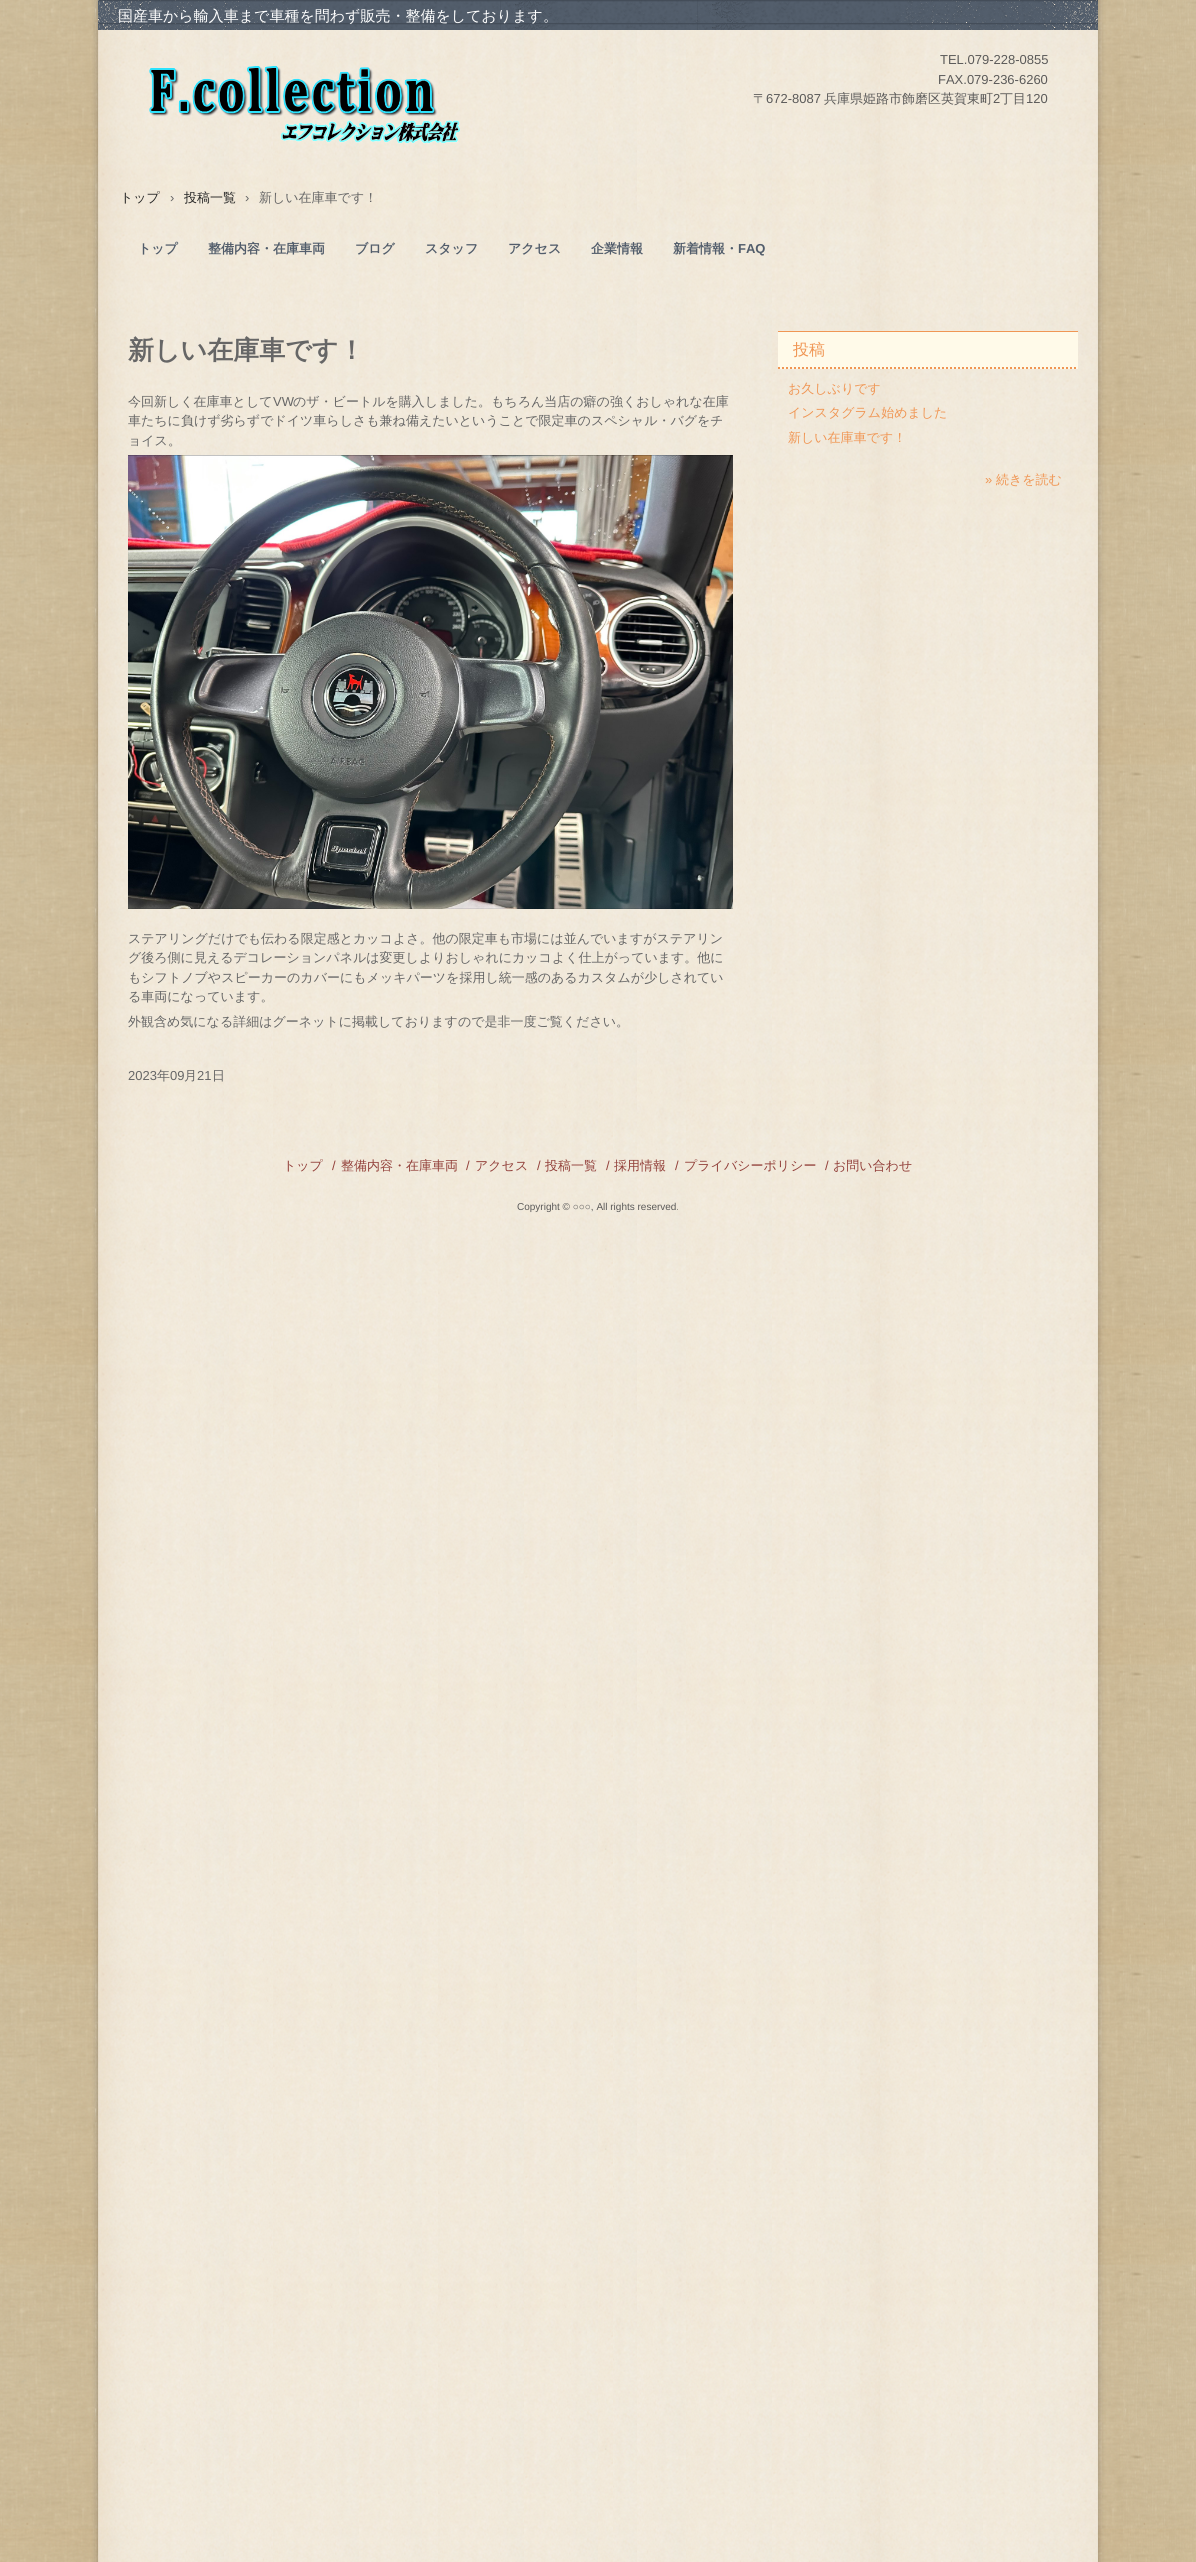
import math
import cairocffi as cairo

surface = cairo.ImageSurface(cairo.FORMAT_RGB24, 1196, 2562)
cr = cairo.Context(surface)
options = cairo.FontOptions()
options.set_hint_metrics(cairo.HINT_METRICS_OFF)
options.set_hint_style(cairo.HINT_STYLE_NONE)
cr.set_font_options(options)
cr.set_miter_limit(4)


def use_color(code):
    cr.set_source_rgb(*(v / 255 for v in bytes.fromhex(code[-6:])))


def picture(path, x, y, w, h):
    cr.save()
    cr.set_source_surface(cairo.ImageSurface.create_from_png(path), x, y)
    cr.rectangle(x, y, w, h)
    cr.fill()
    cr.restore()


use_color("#ffffff")
cr.paint()
picture("img1.png", 0, 0, 1196, 2562)
picture("img2.png", 98, 0, 1000, 30)
cr.select_font_face("WenQuanYi Zen Hei Medium")
cr.set_font_size(15)
use_color("#ffffff")
cr.move_to(118, 21)
cr.show_text("国産車から輸入車まで車種を問わず販売・整備をしております。")
picture("img3.png", 149, 66, 312, 78)
cr.select_font_face("Liberation Sans")
cr.set_font_size(13)
use_color("#5b5a59")
cr.move_to(940, 64)
cr.show_text("TEL.079-228-0855")
cr.move_to(938, 84)
cr.show_text("FAX.079-236-6260")
cr.select_font_face("WenQuanYi Zen Hei Medium")
cr.move_to(753, 103)
cr.show_text("〒")
cr.select_font_face("Liberation Sans")
cr.move_to(766, 103)
cr.show_text("672-8087")
cr.select_font_face("WenQuanYi Zen Hei Medium")
cr.move_to(824, 103)
cr.show_text("兵庫県姫路市飾磨区英賀東町")
cr.select_font_face("Liberation Sans")
cr.move_to(993, 103)
cr.show_text("2")
cr.select_font_face("WenQuanYi Zen Hei Medium")
cr.move_to(1000, 103)
cr.show_text("丁目")
cr.select_font_face("Liberation Sans")
cr.move_to(1026, 103)
cr.show_text("120")
cr.select_font_face("WenQuanYi Zen Hei Medium")
use_color("#262626")
cr.move_to(120, 202)
cr.show_text("トップ")
cr.select_font_face("Liberation Sans")
use_color("#666666")
cr.move_to(170, 202)
cr.show_text("›")
cr.select_font_face("WenQuanYi Zen Hei Medium")
use_color("#262626")
cr.move_to(184, 202)
cr.show_text("投稿一覧")
cr.select_font_face("Liberation Sans")
use_color("#666666")
cr.move_to(245, 202)
cr.show_text("›")
cr.select_font_face("WenQuanYi Zen Hei Medium")
cr.move_to(259, 202)
cr.show_text("新しい在庫車です！")
cr.select_font_face("WenQuanYi Zen Hei", cairo.FONT_SLANT_NORMAL, cairo.FONT_WEIGHT_BOLD)
use_color("#525d6b")
cr.move_to(138, 253)
cr.show_text("トップ")
cr.move_to(208, 253)
cr.show_text("整備内容・在庫車両")
cr.move_to(355, 253)
cr.show_text("ブログ")
cr.move_to(425, 253)
cr.show_text("スタッフ")
cr.move_to(508, 253)
cr.show_text("アクセス")
cr.move_to(591, 253)
cr.show_text("企業情報")
cr.move_to(673, 253)
cr.show_text("新着情報・")
cr.select_font_face("Liberation Sans", cairo.FONT_SLANT_NORMAL, cairo.FONT_WEIGHT_BOLD)
cr.move_to(738, 253)
cr.show_text("FAQ")
cr.select_font_face("WenQuanYi Zen Hei", cairo.FONT_SLANT_NORMAL, cairo.FONT_WEIGHT_BOLD)
cr.set_font_size(26)
use_color("#666666")
cr.move_to(128, 359)
cr.show_text("新しい在庫車です！")
cr.select_font_face("WenQuanYi Zen Hei Medium")
cr.set_font_size(13)
cr.move_to(128, 406)
cr.show_text("今回新しく在庫車として")
cr.select_font_face("Liberation Sans")
cr.move_to(273, 406)
cr.show_text("VW")
cr.select_font_face("WenQuanYi Zen Hei Medium")
cr.move_to(293, 406)
cr.show_text("のザ・ビートルを購入しました。もちろん当店の癖の強くおしゃれな在庫")
cr.move_to(128, 425)
cr.show_text("車たちに負けず劣らずでドイツ車らしさも兼ね備えたいということで限定車のスペシャル・バグをチ")
cr.move_to(128, 445)
cr.show_text("ョイス。")
picture("img4.png", 128, 455, 605, 454)
cr.move_to(128, 943)
cr.show_text("ステアリングだけでも伝わる限定感とカッコよさ。他の限定車も市場には並んでいますがステアリン")
cr.move_to(128, 962)
cr.show_text("グ後ろ側に見えるデコレーションパネルは変更しよりおしゃれにカッコよく仕上がっています。他に")
cr.move_to(128, 982)
cr.show_text("もシフトノブやスピーカーのカバーにもメッキパーツを採用し統一感のあるカスタムが少しされてい")
cr.move_to(128, 1001)
cr.show_text("る車両になっています。")
cr.move_to(128, 1026)
cr.show_text("外観含め気になる詳細はグーネットに掲載しておりますので是非一度ご覧ください。")
cr.select_font_face("Liberation Sans")
cr.move_to(128, 1080)
cr.show_text("2023")
cr.select_font_face("WenQuanYi Zen Hei Medium")
cr.move_to(157, 1080)
cr.show_text("年")
cr.select_font_face("Liberation Sans")
cr.move_to(170, 1080)
cr.show_text("09")
cr.select_font_face("WenQuanYi Zen Hei Medium")
cr.move_to(184, 1080)
cr.show_text("月")
cr.select_font_face("Liberation Sans")
cr.move_to(197, 1080)
cr.show_text("21")
cr.select_font_face("WenQuanYi Zen Hei Medium")
cr.move_to(212, 1080)
cr.show_text("日")
use_color("#fffae9")
cr.rectangle(778, 332, 300, 37)
cr.fill()
use_color("#f09654")
cr.rectangle(778, 331, 300, 1)
cr.fill()
cr.new_path()
cr.move_to(778, 368)
cr.line_to(1078, 368)
cr.set_dash([2, 2])
cr.stroke()
cr.set_font_size(16)
cr.move_to(793, 355)
cr.show_text("投稿")
cr.set_font_size(13)
cr.move_to(788, 393)
cr.show_text("お久しぶりです")
cr.move_to(788, 417)
cr.show_text("インスタグラム始めました")
cr.move_to(788, 442)
cr.show_text("新しい在庫車です！")
cr.select_font_face("Liberation Sans")
cr.move_to(985, 484)
cr.show_text("»")
cr.select_font_face("WenQuanYi Zen Hei Medium")
cr.move_to(996, 484)
cr.show_text("続きを読む")
use_color("#93413b")
cr.move_to(283, 1170)
cr.show_text("トップ")
cr.select_font_face("Liberation Sans")
cr.move_to(332, 1170)
cr.show_text("/")
cr.select_font_face("WenQuanYi Zen Hei Medium")
cr.move_to(341, 1170)
cr.show_text("整備内容・在庫車両")
cr.select_font_face("Liberation Sans")
cr.move_to(466, 1170)
cr.show_text("/")
cr.select_font_face("WenQuanYi Zen Hei Medium")
cr.move_to(475, 1170)
cr.show_text("アクセス")
cr.select_font_face("Liberation Sans")
cr.move_to(537, 1170)
cr.show_text("/")
cr.select_font_face("WenQuanYi Zen Hei Medium")
cr.move_to(545, 1170)
cr.show_text("投稿一覧")
cr.select_font_face("Liberation Sans")
cr.move_to(606, 1170)
cr.show_text("/")
cr.select_font_face("WenQuanYi Zen Hei Medium")
cr.move_to(614, 1170)
cr.show_text("採用情報")
cr.select_font_face("Liberation Sans")
cr.move_to(675, 1170)
cr.show_text("/")
cr.select_font_face("WenQuanYi Zen Hei Medium")
cr.move_to(684, 1170)
cr.show_text("プライバシーポリシー")
cr.select_font_face("Liberation Sans")
cr.move_to(825, 1170)
cr.show_text("/")
cr.select_font_face("WenQuanYi Zen Hei Medium")
cr.move_to(833, 1170)
cr.show_text("お問い合わせ")
cr.select_font_face("Liberation Sans")
cr.set_font_size(10)
use_color("#5b5a59")
cr.move_to(517, 1210)
cr.show_text("Copyright © ○○○, All rights reserved.")
surface.write_to_png("result.png")
